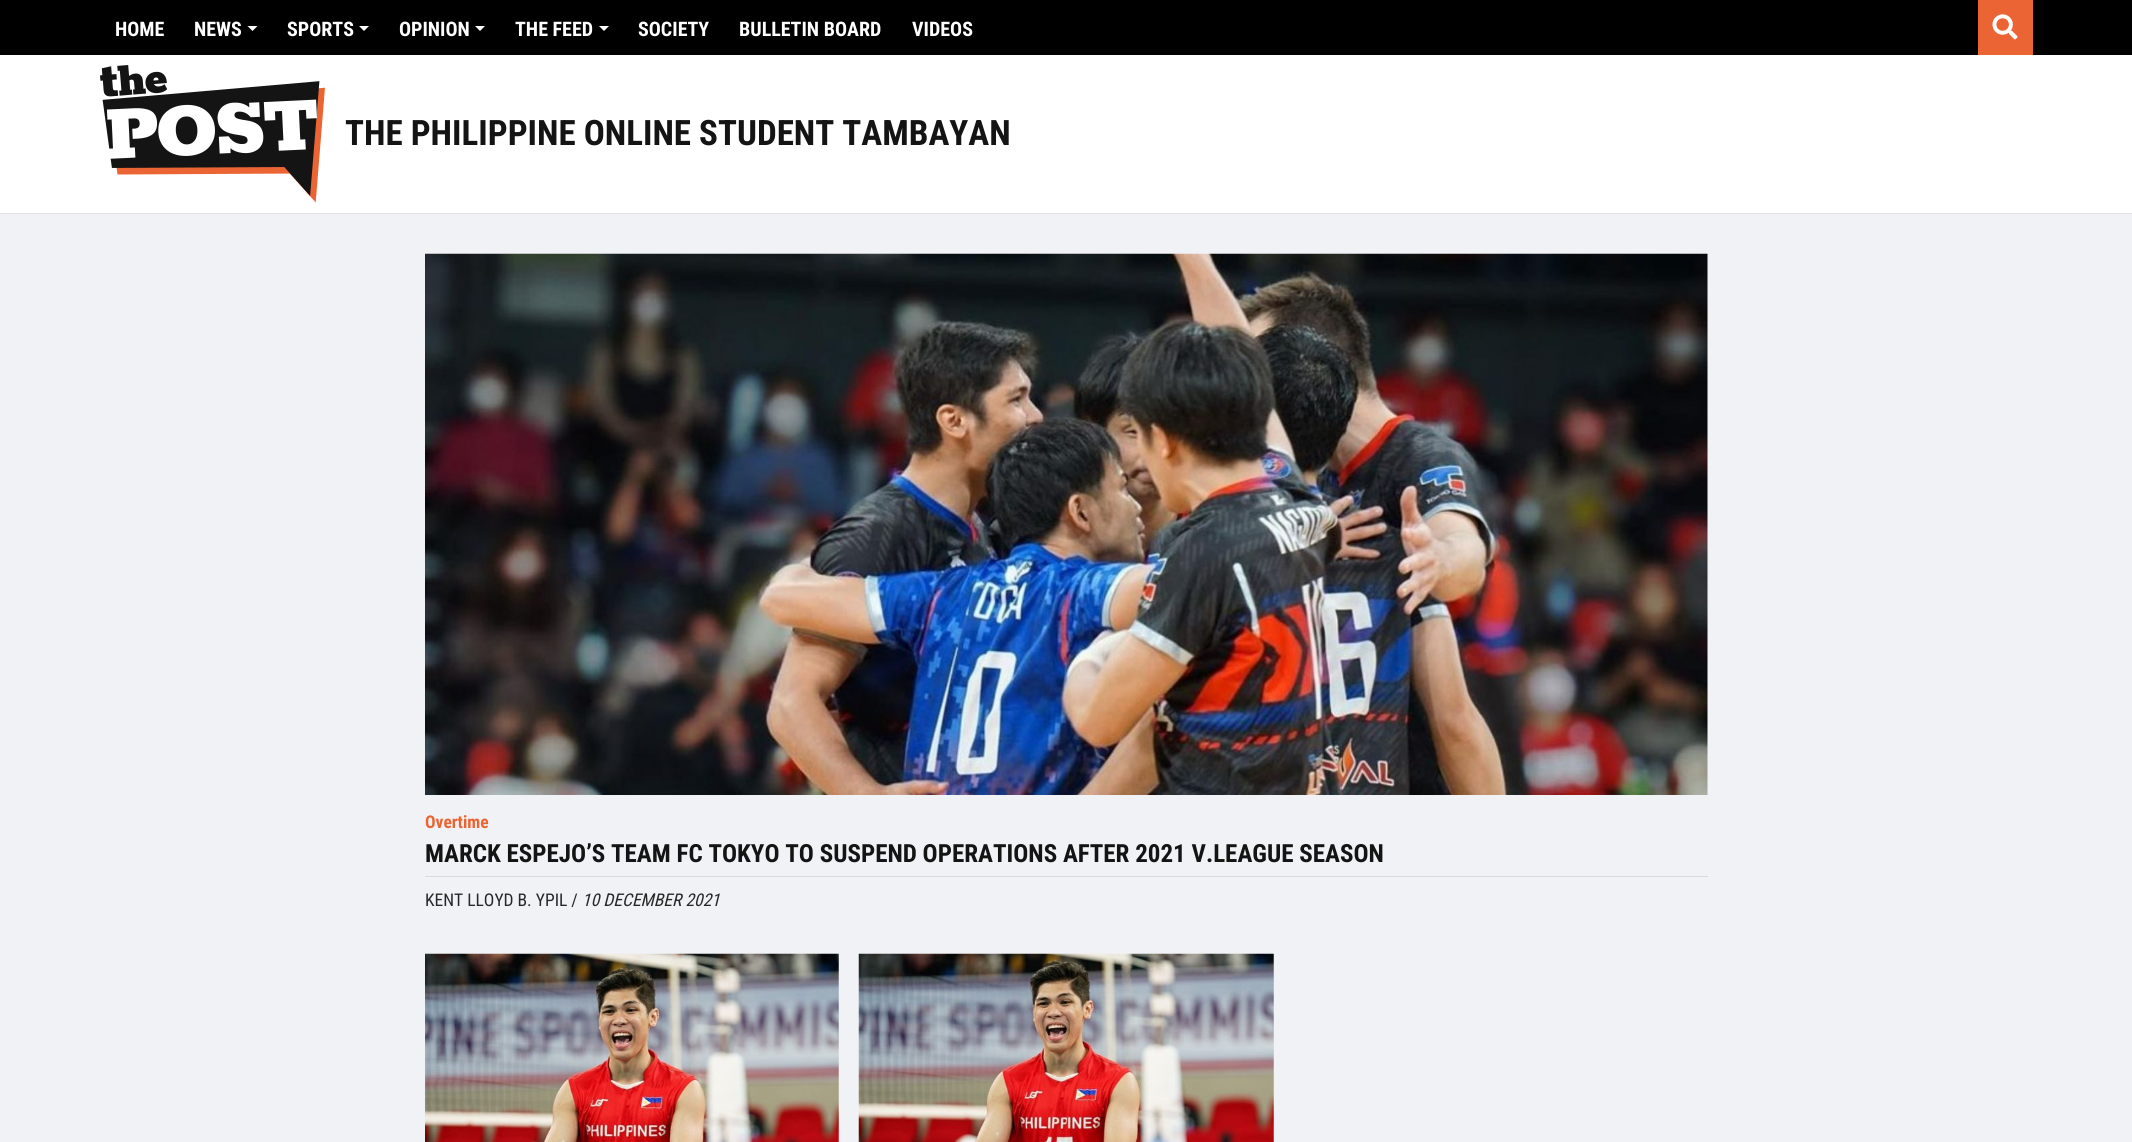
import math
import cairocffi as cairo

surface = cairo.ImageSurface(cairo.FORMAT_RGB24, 2132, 1142)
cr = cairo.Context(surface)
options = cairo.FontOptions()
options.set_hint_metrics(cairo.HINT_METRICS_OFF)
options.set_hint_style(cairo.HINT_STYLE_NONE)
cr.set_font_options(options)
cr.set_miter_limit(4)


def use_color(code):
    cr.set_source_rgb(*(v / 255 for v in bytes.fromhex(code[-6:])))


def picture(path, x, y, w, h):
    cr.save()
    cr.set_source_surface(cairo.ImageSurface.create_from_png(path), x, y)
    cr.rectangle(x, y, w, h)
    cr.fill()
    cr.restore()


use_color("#f1f2f5")
cr.paint()
use_color("#000000")
cr.rectangle(0, 0, 2132, 55)
cr.fill()
cr.select_font_face("Roboto Condensed", cairo.FONT_SLANT_NORMAL, cairo.FONT_WEIGHT_BOLD)
cr.set_font_size(20)
use_color("#ffffff")
cr.move_to(115, 36)
cr.show_text("HOME")
cr.move_to(194, 36)
cr.show_text("NEWS")
cr.new_path()
cr.move_to(247.5, 26)
cr.line_to(257.5, 26)
cr.line_to(252.5, 31)
cr.close_path()
cr.fill()
cr.move_to(287, 36)
cr.show_text("SPORTS")
cr.new_path()
cr.move_to(359, 26)
cr.line_to(369, 26)
cr.line_to(364, 31)
cr.close_path()
cr.fill()
cr.move_to(399, 36)
cr.show_text("OPINION")
cr.new_path()
cr.move_to(475, 26)
cr.line_to(485, 26)
cr.line_to(480, 31)
cr.close_path()
cr.fill()
cr.move_to(515, 36)
cr.show_text("THE FEED")
cr.new_path()
cr.move_to(599, 26)
cr.line_to(609, 26)
cr.line_to(604, 31)
cr.close_path()
cr.fill()
cr.move_to(638, 36)
cr.show_text("SOCIETY")
cr.move_to(739, 36)
cr.show_text("BULLETIN BOARD")
cr.move_to(912, 36)
cr.show_text("VIDEOS")
use_color("#eb6534")
cr.rectangle(1978, 0, 55, 55)
cr.fill()
picture("img1.png", 1992, 14, 26, 26)
use_color("#ffffff")
cr.rectangle(0, 55, 2132, 158)
cr.fill()
use_color("#e0e0e0")
cr.rectangle(0, 213, 2132, 1)
cr.fill()
picture("img2.png", 100, 65, 225, 138)
cr.set_font_size(35)
use_color("#141414")
cr.move_to(345, 145)
cr.show_text("THE PHILIPPINE ONLINE STUDENT TAMBAYAN")
picture("img3.png", 425, 253, 1283, 542)
cr.set_font_size(17.5)
use_color("#eb6534")
cr.move_to(425, 828)
cr.show_text("Overtime")
cr.set_font_size(25)
use_color("#141414")
cr.move_to(425, 862)
cr.show_text("MARCK ESPEJO’S TEAM FC TOKYO TO SUSPEND OPERATIONS AFTER 2021 V.LEAGUE SEASON")
use_color("#d9dadd")
cr.rectangle(425, 876, 1283, 1)
cr.fill()
cr.select_font_face("Roboto Condensed")
cr.set_font_size(17.5)
use_color("#272727")
cr.move_to(425, 906)
cr.show_text("KENT LLOYD B. YPIL /")
cr.select_font_face("Roboto Condensed", cairo.FONT_SLANT_ITALIC)
cr.move_to(582, 906)
cr.show_text("10 DECEMBER 2021")
picture("img4.png", 425, 953, 414, 189)
picture("img5.png", 858, 953, 416, 189)
surface.write_to_png("result.png")
